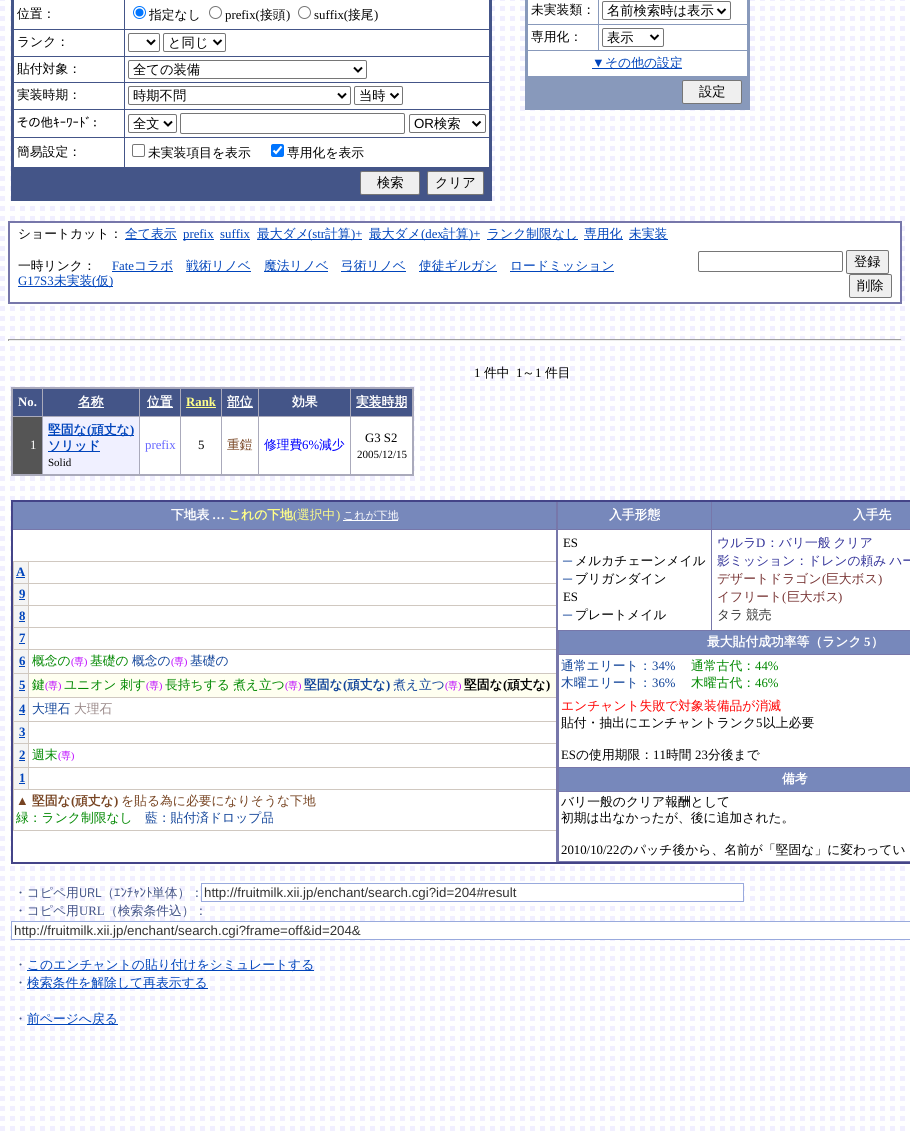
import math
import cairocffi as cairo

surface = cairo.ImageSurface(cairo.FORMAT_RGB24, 910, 1133)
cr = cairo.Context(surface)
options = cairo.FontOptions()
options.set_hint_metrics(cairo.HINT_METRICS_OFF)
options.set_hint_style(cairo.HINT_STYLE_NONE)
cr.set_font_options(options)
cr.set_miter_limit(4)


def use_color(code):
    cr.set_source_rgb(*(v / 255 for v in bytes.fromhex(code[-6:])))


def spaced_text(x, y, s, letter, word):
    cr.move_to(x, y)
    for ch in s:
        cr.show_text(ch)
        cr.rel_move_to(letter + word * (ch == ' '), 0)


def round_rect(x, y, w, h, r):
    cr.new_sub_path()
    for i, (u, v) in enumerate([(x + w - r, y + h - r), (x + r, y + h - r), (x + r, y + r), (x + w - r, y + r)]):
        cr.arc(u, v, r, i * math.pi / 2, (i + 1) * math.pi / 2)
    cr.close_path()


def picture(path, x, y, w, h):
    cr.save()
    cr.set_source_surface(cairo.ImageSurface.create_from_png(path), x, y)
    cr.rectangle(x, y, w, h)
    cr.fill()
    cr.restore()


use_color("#ffffff")
cr.paint()
picture("img1.png", 0, 0, 905, 1131)
use_color("#445588")
cr.rectangle(11, 0, 481, 201)
cr.fill()
use_color("#ffffff")
cr.rectangle(14, 0, 110, 29)
cr.fill()
cr.select_font_face("WenQuanYi Zen Hei Medium")
cr.set_font_size(12.8)
use_color("#000000")
cr.move_to(17, 18)
cr.show_text("位置：")
use_color("#ffffff")
cr.rectangle(125, 0, 364, 29)
cr.fill()
cr.arc(139.5, 12.5, 6, 0, 2 * math.pi)
use_color("#0075ff")
cr.set_line_width(1)
cr.stroke()
cr.arc(139.5, 12.5, 4, 0, 2 * math.pi)
cr.fill()
use_color("#000000")
cr.move_to(149, 19)
cr.show_text("指定なし")
cr.new_path()
cr.arc(215.5, 12.5, 6, 0, 2 * math.pi)
use_color("#767676")
cr.stroke()
cr.select_font_face("Liberation Serif")
use_color("#000000")
cr.move_to(225, 19)
cr.show_text("prefix(")
cr.select_font_face("WenQuanYi Zen Hei Medium")
cr.move_to(260, 19)
cr.show_text("接頭")
cr.select_font_face("Liberation Serif")
cr.move_to(286, 19)
cr.show_text(")")
cr.new_path()
cr.arc(304.5, 12.5, 6, 0, 2 * math.pi)
use_color("#767676")
cr.stroke()
use_color("#000000")
cr.move_to(314, 19)
cr.show_text("suffix(")
cr.select_font_face("WenQuanYi Zen Hei Medium")
cr.move_to(348, 19)
cr.show_text("接尾")
cr.select_font_face("Liberation Serif")
cr.move_to(374, 19)
cr.show_text(")")
use_color("#ffffff")
cr.rectangle(14, 30, 110, 26)
cr.fill()
cr.select_font_face("WenQuanYi Zen Hei Medium")
use_color("#000000")
cr.move_to(17, 46)
cr.show_text("ランク：")
use_color("#ffffff")
cr.rectangle(125, 30, 364, 26)
cr.fill()
round_rect(128.5, 33.5, 31, 18, 1.5)
use_color("#767676")
cr.stroke()
cr.new_path()
cr.move_to(147, 40)
cr.line_to(151, 44)
cr.line_to(155, 40)
use_color("#000000")
cr.set_line_width(2)
cr.stroke()
round_rect(163.5, 33.5, 62, 18, 1.5)
use_color("#767676")
cr.set_line_width(1)
cr.stroke()
cr.new_path()
cr.move_to(213.5, 40)
cr.line_to(217.5, 44)
cr.line_to(221.5, 40)
use_color("#000000")
cr.set_line_width(2)
cr.stroke()
cr.set_font_size(13.3)
cr.move_to(168, 47)
cr.show_text("と同じ")
use_color("#ffffff")
cr.rectangle(14, 57, 110, 25)
cr.fill()
cr.set_font_size(12.8)
use_color("#000000")
cr.move_to(17, 73)
cr.show_text("貼付対象：")
use_color("#ffffff")
cr.rectangle(125, 57, 364, 25)
cr.fill()
round_rect(128.5, 60.5, 238, 18, 1.5)
use_color("#767676")
cr.set_line_width(1)
cr.stroke()
cr.new_path()
cr.move_to(354, 67.5)
cr.line_to(358, 71.5)
cr.line_to(362, 67.5)
use_color("#000000")
cr.set_line_width(2)
cr.stroke()
cr.set_font_size(13.3)
cr.move_to(133, 74)
cr.show_text("全ての装備")
use_color("#ffffff")
cr.rectangle(14, 83, 110, 26)
cr.fill()
cr.set_font_size(12.8)
use_color("#000000")
cr.move_to(17, 99)
cr.show_text("実装時期：")
use_color("#ffffff")
cr.rectangle(125, 83, 364, 26)
cr.fill()
round_rect(128.5, 86.5, 222, 18, 1.5)
use_color("#767676")
cr.set_line_width(1)
cr.stroke()
cr.new_path()
cr.move_to(338, 93.5)
cr.line_to(342, 97.5)
cr.line_to(346, 93.5)
use_color("#000000")
cr.set_line_width(2)
cr.stroke()
cr.set_font_size(13.3)
cr.move_to(133, 100)
cr.show_text("時期不問")
round_rect(354.5, 86.5, 48, 18, 1.5)
use_color("#767676")
cr.set_line_width(1)
cr.stroke()
cr.new_path()
cr.move_to(390.5, 93.5)
cr.line_to(394.5, 97.5)
cr.line_to(398.5, 93.5)
use_color("#000000")
cr.set_line_width(2)
cr.stroke()
cr.move_to(359, 100)
cr.show_text("当時")
use_color("#ffffff")
cr.rectangle(14, 110, 110, 27)
cr.fill()
cr.select_font_face("IPAPGothic")
cr.set_font_size(12.8)
use_color("#000000")
cr.move_to(17, 127)
cr.show_text("その他ｷｰﾜｰﾄﾞ：")
use_color("#ffffff")
cr.rectangle(125, 110, 364, 27)
cr.fill()
round_rect(128.5, 114.5, 48, 18, 1.5)
use_color("#767676")
cr.set_line_width(1)
cr.stroke()
cr.new_path()
cr.move_to(164, 121.5)
cr.line_to(168, 125.5)
cr.line_to(172, 121.5)
use_color("#000000")
cr.set_line_width(2)
cr.stroke()
cr.select_font_face("WenQuanYi Zen Hei Medium")
cr.set_font_size(13.3)
cr.move_to(133, 128)
cr.show_text("全文")
round_rect(180.5, 113.5, 224, 20, 1.5)
use_color("#767676")
cr.set_line_width(1)
cr.stroke()
round_rect(409.5, 114.5, 76, 18, 1.5)
cr.stroke()
cr.new_path()
cr.move_to(472.5, 121.5)
cr.line_to(476.5, 125.5)
cr.line_to(480.5, 121.5)
use_color("#000000")
cr.set_line_width(2)
cr.stroke()
cr.select_font_face("Liberation Sans")
cr.move_to(414, 128)
cr.show_text("OR")
cr.select_font_face("WenQuanYi Zen Hei Medium")
cr.move_to(434, 128)
cr.show_text("検索")
use_color("#ffffff")
cr.rectangle(14, 138, 110, 29)
cr.fill()
cr.set_font_size(12.8)
use_color("#000000")
cr.move_to(17, 156)
cr.show_text("簡易設定：")
use_color("#ffffff")
cr.rectangle(125, 138, 364, 29)
cr.fill()
round_rect(132.5, 144.5, 12, 12, 1.5)
use_color("#767676")
cr.set_line_width(1)
cr.stroke()
use_color("#000000")
cr.move_to(148, 157)
cr.show_text("未実装項目を表示")
use_color("#0075ff")
round_rect(271, 144, 13, 13, 2)
cr.fill()
cr.new_path()
cr.move_to(273.5, 150.5)
cr.line_to(276, 153)
cr.line_to(281.5, 146.5)
use_color("#ffffff")
cr.set_line_width(2.1)
cr.stroke()
use_color("#000000")
cr.move_to(287, 157)
cr.show_text("専用化を表示")
use_color("#efefef")
round_rect(360.5, 171.5, 59, 23, 1.5)
cr.fill_preserve()
use_color("#767676")
cr.set_line_width(1)
cr.stroke()
cr.set_font_size(13.3)
use_color("#000000")
cr.move_to(377, 187)
cr.show_text("検索")
use_color("#efefef")
round_rect(427.5, 171.5, 56, 23, 1.5)
cr.fill_preserve()
use_color("#767676")
cr.stroke()
use_color("#000000")
cr.move_to(435, 187)
cr.show_text("クリア")
use_color("#8899bb")
cr.rectangle(525, 0, 225, 110)
cr.fill()
use_color("#ffffff")
cr.rectangle(528, 0, 70, 24)
cr.fill()
cr.set_font_size(12.8)
use_color("#000000")
cr.move_to(531, 14)
cr.show_text("未実装類：")
use_color("#ffffff")
cr.rectangle(599, 0, 148, 24)
cr.fill()
round_rect(602.5, 1.5, 128, 18, 1.5)
use_color("#767676")
cr.stroke()
cr.new_path()
cr.move_to(717.5, 9)
cr.line_to(721.5, 13)
cr.line_to(725.5, 9)
use_color("#000000")
cr.set_line_width(2)
cr.stroke()
cr.set_font_size(13.3)
cr.move_to(607, 15)
cr.show_text("名前検索時は表示")
use_color("#ffffff")
cr.rectangle(528, 25, 70, 25)
cr.fill()
cr.set_font_size(12.8)
use_color("#000000")
cr.move_to(531, 41)
cr.show_text("専用化：")
use_color("#ffffff")
cr.rectangle(599, 25, 148, 25)
cr.fill()
round_rect(602.5, 28.5, 61, 18, 1.5)
use_color("#767676")
cr.set_line_width(1)
cr.stroke()
cr.new_path()
cr.move_to(650.5, 35)
cr.line_to(654.5, 39)
cr.line_to(658.5, 35)
use_color("#000000")
cr.set_line_width(2)
cr.stroke()
cr.set_font_size(13.3)
cr.move_to(607, 42)
cr.show_text("表示")
use_color("#ffffff")
cr.rectangle(528, 51, 219, 25)
cr.fill()
cr.select_font_face("Liberation Serif")
cr.set_font_size(12.8)
use_color("#0044bb")
cr.move_to(592, 67)
cr.show_text("▼")
cr.rectangle(592, 68, 90, 1)
cr.fill()
cr.select_font_face("WenQuanYi Zen Hei Medium")
cr.move_to(605, 67)
cr.show_text("その他の設定")
use_color("#efefef")
round_rect(682.5, 80.5, 59, 23, 1.5)
cr.fill_preserve()
use_color("#767676")
cr.set_line_width(1)
cr.stroke()
cr.set_font_size(13.3)
use_color("#000000")
cr.move_to(699, 96)
cr.show_text("設定")
use_color("#7777aa")
cr.rectangle(8, 221, 894, 2)
cr.fill()
cr.rectangle(900, 221, 2, 83)
cr.fill()
cr.rectangle(8, 302, 894, 2)
cr.fill()
cr.rectangle(8, 221, 2, 83)
cr.fill()
use_color("#ffffff")
cr.rectangle(10, 226, 885, 15)
cr.fill()
cr.set_font_size(12.8)
use_color("#000000")
cr.move_to(18, 238)
cr.show_text("ショートカット：")
use_color("#0044bb")
cr.rectangle(125, 239, 52, 1)
cr.fill()
cr.move_to(125, 238)
cr.show_text("全て表示")
cr.rectangle(183, 239, 31, 1)
cr.fill()
cr.select_font_face("Liberation Serif")
cr.move_to(183, 238)
cr.show_text("prefix")
cr.move_to(220, 238)
cr.show_text("suffix")
cr.rectangle(220, 239, 30, 1)
cr.fill()
cr.rectangle(257, 239, 105, 1)
cr.fill()
cr.select_font_face("WenQuanYi Zen Hei Medium")
cr.move_to(257, 238)
cr.show_text("最大ダメ")
cr.select_font_face("Liberation Serif")
cr.move_to(308, 238)
cr.show_text("(str")
cr.select_font_face("WenQuanYi Zen Hei Medium")
cr.move_to(325, 238)
cr.show_text("計算")
cr.select_font_face("Liberation Serif")
cr.move_to(351, 238)
cr.show_text(")+")
cr.rectangle(369, 239, 111, 1)
cr.fill()
cr.select_font_face("WenQuanYi Zen Hei Medium")
cr.move_to(369, 238)
cr.show_text("最大ダメ")
cr.select_font_face("Liberation Serif")
cr.move_to(421, 238)
cr.show_text("(dex")
cr.select_font_face("WenQuanYi Zen Hei Medium")
cr.move_to(443, 238)
cr.show_text("計算")
cr.select_font_face("Liberation Serif")
cr.move_to(469, 238)
cr.show_text(")+")
cr.rectangle(487, 239, 91, 1)
cr.fill()
cr.select_font_face("WenQuanYi Zen Hei Medium")
cr.move_to(487, 238)
cr.show_text("ランク制限なし")
cr.rectangle(584, 239, 39, 1)
cr.fill()
cr.move_to(584, 238)
cr.show_text("専用化")
cr.rectangle(629, 239, 39, 1)
cr.fill()
cr.move_to(629, 238)
cr.show_text("未実装")
use_color("#ffffff")
cr.rectangle(10, 246, 645, 55)
cr.fill()
use_color("#000000")
cr.move_to(18, 270)
cr.show_text("一時リンク：")
cr.select_font_face("Liberation Serif")
use_color("#0044bb")
cr.move_to(112, 270)
cr.show_text("Fate")
cr.rectangle(112, 271, 61, 1)
cr.fill()
cr.select_font_face("WenQuanYi Zen Hei Medium")
cr.move_to(134, 270)
cr.show_text("コラボ")
cr.rectangle(186, 271, 65, 1)
cr.fill()
cr.move_to(186, 270)
cr.show_text("戦術リノベ")
cr.rectangle(264, 271, 64, 1)
cr.fill()
cr.move_to(264, 270)
cr.show_text("魔法リノベ")
cr.rectangle(341, 271, 65, 1)
cr.fill()
cr.move_to(341, 270)
cr.show_text("弓術リノベ")
cr.rectangle(419, 271, 78, 1)
cr.fill()
cr.move_to(419, 270)
cr.show_text("使徒ギルガシ")
cr.rectangle(510, 271, 104, 1)
cr.fill()
cr.move_to(510, 270)
cr.show_text("ロードミッション")
cr.select_font_face("Liberation Serif")
cr.move_to(18, 285)
cr.show_text("G17S3")
cr.rectangle(18, 286, 95, 1)
cr.fill()
cr.select_font_face("WenQuanYi Zen Hei Medium")
cr.move_to(54, 285)
cr.show_text("未実装")
cr.select_font_face("Liberation Serif")
cr.move_to(92, 285)
cr.show_text("(")
cr.select_font_face("WenQuanYi Zen Hei Medium")
cr.move_to(96, 285)
cr.show_text("仮")
cr.select_font_face("Liberation Serif")
cr.move_to(109, 285)
cr.show_text(")")
use_color("#ffffff")
cr.rectangle(660, 246, 235, 55)
cr.fill()
round_rect(698.5, 251.5, 144, 20, 1.5)
use_color("#767676")
cr.stroke()
use_color("#efefef")
round_rect(846.5, 250.5, 42, 23, 1.5)
cr.fill_preserve()
use_color("#767676")
cr.stroke()
cr.select_font_face("WenQuanYi Zen Hei Medium")
cr.set_font_size(13.3)
use_color("#000000")
cr.move_to(854, 266)
cr.show_text("登録")
use_color("#efefef")
round_rect(849.5, 274.5, 42, 23, 1.5)
cr.fill_preserve()
use_color("#767676")
cr.stroke()
use_color("#000000")
cr.move_to(857, 290)
cr.show_text("削除")
use_color("#9f9f9f")
cr.rectangle(8, 339, 894, 1)
cr.fill()
use_color("#eeeeee")
cr.rectangle(901, 339, 1, 2)
cr.fill()
cr.rectangle(8, 340, 894, 1)
cr.fill()
use_color("#9f9f9f")
cr.rectangle(8, 339, 1, 2)
cr.fill()
cr.select_font_face("Liberation Serif")
cr.set_font_size(12.8)
use_color("#000000")
cr.move_to(474, 377)
cr.show_text("1")
cr.select_font_face("WenQuanYi Zen Hei Medium")
cr.move_to(484, 377)
cr.show_text("件中")
cr.select_font_face("Liberation Serif")
cr.move_to(516, 377)
cr.show_text("1")
cr.select_font_face("WenQuanYi Zen Hei Medium")
cr.move_to(522, 377)
cr.show_text("～")
cr.select_font_face("Liberation Serif")
cr.move_to(535, 377)
cr.show_text("1")
cr.select_font_face("WenQuanYi Zen Hei Medium")
cr.move_to(545, 377)
cr.show_text("件目")
use_color("#ffffff")
cr.rectangle(140, 417, 272, 54)
cr.fill()
use_color("#aaaabb")
cr.rectangle(350, 416, 64, 1)
cr.fill()
cr.rectangle(350, 416, 1, 60)
cr.fill()
cr.rectangle(258, 416, 93, 1)
cr.fill()
cr.rectangle(258, 416, 1, 60)
cr.fill()
cr.rectangle(221, 416, 38, 1)
cr.fill()
cr.rectangle(221, 416, 1, 60)
cr.fill()
cr.rectangle(180, 416, 42, 1)
cr.fill()
cr.rectangle(180, 416, 1, 60)
cr.fill()
cr.rectangle(139, 416, 42, 1)
cr.fill()
cr.rectangle(139, 416, 1, 60)
cr.fill()
cr.rectangle(42, 416, 98, 1)
cr.fill()
cr.rectangle(42, 416, 1, 60)
cr.fill()
cr.rectangle(12, 416, 31, 1)
cr.fill()
cr.rectangle(42, 388, 1, 29)
cr.fill()
cr.rectangle(139, 388, 1, 29)
cr.fill()
cr.rectangle(180, 388, 1, 29)
cr.fill()
cr.rectangle(221, 388, 1, 29)
cr.fill()
cr.rectangle(258, 388, 1, 29)
cr.fill()
cr.rectangle(350, 388, 1, 29)
cr.fill()
cr.rectangle(11, 387, 403, 2)
cr.fill()
cr.rectangle(412, 387, 2, 89)
cr.fill()
cr.rectangle(11, 474, 403, 2)
cr.fill()
cr.rectangle(11, 387, 2, 89)
cr.fill()
use_color("#445588")
cr.rectangle(13, 389, 29, 27)
cr.fill()
cr.select_font_face("Liberation Serif", cairo.FONT_SLANT_NORMAL, cairo.FONT_WEIGHT_BOLD)
use_color("#ffffff")
cr.move_to(18, 406)
cr.show_text("No.")
use_color("#445588")
cr.rectangle(43, 389, 96, 27)
cr.fill()
use_color("#ffffff")
cr.rectangle(78, 407, 26, 1)
cr.fill()
cr.select_font_face("WenQuanYi Zen Hei", cairo.FONT_SLANT_NORMAL, cairo.FONT_WEIGHT_BOLD)
cr.move_to(78, 406)
cr.show_text("名称")
use_color("#445588")
cr.rectangle(140, 389, 40, 27)
cr.fill()
use_color("#ffffff")
cr.rectangle(147, 407, 26, 1)
cr.fill()
cr.move_to(147, 406)
cr.show_text("位置")
use_color("#445588")
cr.rectangle(181, 389, 40, 27)
cr.fill()
cr.select_font_face("Liberation Serif", cairo.FONT_SLANT_NORMAL, cairo.FONT_WEIGHT_BOLD)
use_color("#ffff88")
cr.move_to(186, 406)
cr.show_text("Rank")
cr.rectangle(186, 407, 30, 1)
cr.fill()
use_color("#445588")
cr.rectangle(222, 389, 36, 27)
cr.fill()
use_color("#ffffff")
cr.rectangle(227, 407, 26, 1)
cr.fill()
cr.select_font_face("WenQuanYi Zen Hei", cairo.FONT_SLANT_NORMAL, cairo.FONT_WEIGHT_BOLD)
cr.move_to(227, 406)
cr.show_text("部位")
use_color("#445588")
cr.rectangle(259, 389, 91, 27)
cr.fill()
use_color("#ffffff")
cr.move_to(292, 406)
cr.show_text("効果")
use_color("#445588")
cr.rectangle(351, 389, 61, 27)
cr.fill()
use_color("#ffffff")
cr.rectangle(356, 407, 51, 1)
cr.fill()
cr.move_to(356, 406)
cr.show_text("実装時期")
use_color("#555555")
cr.rectangle(13, 417, 29, 57)
cr.fill()
cr.select_font_face("Liberation Serif")
use_color("#ffffff")
cr.move_to(30, 449)
cr.show_text("1")
use_color("#f0f0ff")
cr.rectangle(43, 417, 96, 57)
cr.fill()
use_color("#0044bb")
cr.rectangle(48, 435, 86, 1)
cr.fill()
cr.select_font_face("WenQuanYi Zen Hei", cairo.FONT_SLANT_NORMAL, cairo.FONT_WEIGHT_BOLD)
cr.move_to(48, 434)
cr.show_text("堅固な")
cr.select_font_face("Liberation Serif", cairo.FONT_SLANT_NORMAL, cairo.FONT_WEIGHT_BOLD)
cr.move_to(87, 434)
cr.show_text("(")
cr.select_font_face("WenQuanYi Zen Hei", cairo.FONT_SLANT_NORMAL, cairo.FONT_WEIGHT_BOLD)
cr.move_to(91, 434)
cr.show_text("頑丈な")
cr.select_font_face("Liberation Serif", cairo.FONT_SLANT_NORMAL, cairo.FONT_WEIGHT_BOLD)
cr.move_to(130, 434)
cr.show_text(")")
cr.rectangle(48, 451, 52, 1)
cr.fill()
cr.select_font_face("WenQuanYi Zen Hei", cairo.FONT_SLANT_NORMAL, cairo.FONT_WEIGHT_BOLD)
cr.move_to(48, 450)
cr.show_text("ソリッド")
cr.select_font_face("Liberation Serif")
cr.set_font_size(11)
use_color("#000000")
cr.move_to(48, 466)
cr.show_text("Solid")
cr.set_font_size(12.8)
use_color("#6666ff")
cr.move_to(145, 449)
cr.show_text("prefix")
use_color("#000000")
cr.move_to(198, 449)
cr.show_text("5")
cr.select_font_face("WenQuanYi Zen Hei Medium")
use_color("#774422")
cr.move_to(227, 449)
cr.show_text("重鎧")
use_color("#0000ff")
cr.move_to(264, 449)
cr.show_text("修理費")
cr.select_font_face("Liberation Serif")
cr.move_to(302, 449)
cr.show_text("6%")
cr.select_font_face("WenQuanYi Zen Hei Medium")
cr.move_to(319, 449)
cr.show_text("減少")
cr.select_font_face("Liberation Serif")
use_color("#000000")
cr.move_to(365, 442)
cr.show_text("G3 S2")
cr.set_font_size(11)
cr.move_to(357, 458)
cr.show_text("2005/12/15")
use_color("#7777aa")
cr.rectangle(557, 501, 1, 362)
cr.fill()
use_color("#ffffff")
cr.rectangle(13, 530, 542, 331)
cr.fill()
use_color("#d0c8c0")
cr.rectangle(13, 561, 544, 1)
cr.fill()
cr.rectangle(28, 583, 529, 1)
cr.fill()
cr.rectangle(28, 605, 529, 1)
cr.fill()
cr.rectangle(28, 627, 529, 1)
cr.fill()
cr.rectangle(28, 649, 529, 1)
cr.fill()
cr.rectangle(28, 673, 529, 1)
cr.fill()
cr.rectangle(28, 697, 529, 1)
cr.fill()
cr.rectangle(28, 721, 529, 1)
cr.fill()
cr.rectangle(28, 743, 529, 1)
cr.fill()
cr.rectangle(28, 767, 529, 1)
cr.fill()
cr.rectangle(13, 789, 544, 1)
cr.fill()
cr.rectangle(13, 830, 544, 1)
cr.fill()
use_color("#7777aa")
cr.rectangle(711, 529, 199, 1)
cr.fill()
cr.rectangle(558, 630, 352, 1)
cr.fill()
cr.rectangle(711, 529, 1, 102)
cr.fill()
cr.rectangle(12, 529, 700, 1)
cr.fill()
cr.rectangle(556, 500, 1, 363)
cr.fill()
cr.rectangle(711, 500, 1, 30)
cr.fill()
use_color("#444488")
cr.rectangle(11, 500, 899, 2)
cr.fill()
cr.rectangle(11, 862, 899, 2)
cr.fill()
cr.rectangle(11, 500, 2, 364)
cr.fill()
use_color("#7788bb")
cr.rectangle(13, 502, 543, 27)
cr.fill()
cr.select_font_face("WenQuanYi Zen Hei", cairo.FONT_SLANT_NORMAL, cairo.FONT_WEIGHT_BOLD)
cr.set_font_size(12.8)
use_color("#ffffff")
cr.move_to(171, 519)
cr.show_text("下地表")
cr.select_font_face("Liberation Serif", cairo.FONT_SLANT_NORMAL, cairo.FONT_WEIGHT_BOLD)
cr.move_to(212, 519)
cr.show_text("…")
cr.select_font_face("WenQuanYi Zen Hei", cairo.FONT_SLANT_NORMAL, cairo.FONT_WEIGHT_BOLD)
use_color("#ffff88")
cr.move_to(228, 519)
cr.show_text("これの下地")
cr.select_font_face("Liberation Serif")
cr.move_to(293, 519)
cr.show_text("(")
cr.select_font_face("WenQuanYi Zen Hei Medium")
cr.move_to(297, 519)
cr.show_text("選択中")
cr.select_font_face("Liberation Serif")
cr.move_to(336, 519)
cr.show_text(")")
use_color("#ffffff")
cr.rectangle(343, 520, 55, 1)
cr.fill()
cr.select_font_face("WenQuanYi Zen Hei Medium")
cr.set_font_size(11)
cr.move_to(343, 519)
cr.show_text("これが下地")
use_color("#7788bb")
cr.rectangle(558, 502, 153, 27)
cr.fill()
cr.select_font_face("WenQuanYi Zen Hei", cairo.FONT_SLANT_NORMAL, cairo.FONT_WEIGHT_BOLD)
cr.set_font_size(12.8)
use_color("#ffffff")
cr.move_to(609, 519)
cr.show_text("入手形態")
use_color("#7788bb")
cr.rectangle(712, 502, 198, 27)
cr.fill()
use_color("#ffffff")
cr.move_to(853, 519)
cr.show_text("入手先")
use_color("#f4f4f4")
cr.rectangle(14, 562, 14, 21)
cr.fill()
cr.select_font_face("Liberation Serif", cairo.FONT_SLANT_NORMAL, cairo.FONT_WEIGHT_BOLD)
use_color("#0044bb")
cr.move_to(16, 576)
cr.show_text("A")
cr.rectangle(16, 577, 9, 1)
cr.fill()
use_color("#d0c8c0")
cr.rectangle(28, 767, 1, 23)
cr.fill()
cr.rectangle(13, 767, 16, 1)
cr.fill()
cr.rectangle(28, 743, 1, 25)
cr.fill()
cr.rectangle(13, 743, 16, 1)
cr.fill()
cr.rectangle(28, 721, 1, 23)
cr.fill()
cr.rectangle(13, 721, 16, 1)
cr.fill()
cr.rectangle(28, 697, 1, 25)
cr.fill()
cr.rectangle(13, 697, 16, 1)
cr.fill()
cr.rectangle(28, 673, 1, 25)
cr.fill()
cr.rectangle(13, 673, 16, 1)
cr.fill()
cr.rectangle(28, 649, 1, 25)
cr.fill()
cr.rectangle(13, 649, 16, 1)
cr.fill()
cr.rectangle(28, 627, 1, 23)
cr.fill()
cr.rectangle(13, 627, 16, 1)
cr.fill()
cr.rectangle(28, 605, 1, 23)
cr.fill()
cr.rectangle(13, 605, 16, 1)
cr.fill()
cr.rectangle(28, 583, 1, 23)
cr.fill()
cr.rectangle(13, 583, 16, 1)
cr.fill()
cr.rectangle(28, 561, 1, 23)
cr.fill()
use_color("#f4f4f4")
cr.rectangle(14, 584, 14, 21)
cr.fill()
use_color("#d0c8c0")
cr.rectangle(13, 789, 1, 42)
cr.fill()
cr.rectangle(13, 767, 1, 23)
cr.fill()
cr.rectangle(13, 743, 1, 25)
cr.fill()
cr.rectangle(13, 721, 1, 23)
cr.fill()
cr.rectangle(13, 697, 1, 25)
cr.fill()
cr.rectangle(13, 673, 1, 25)
cr.fill()
cr.rectangle(13, 649, 1, 25)
cr.fill()
cr.rectangle(13, 627, 1, 23)
cr.fill()
cr.rectangle(13, 605, 1, 23)
cr.fill()
cr.rectangle(13, 561, 1, 45)
cr.fill()
use_color("#0044bb")
cr.move_to(19, 598)
cr.show_text("9")
cr.rectangle(19, 599, 6, 1)
cr.fill()
use_color("#f4f4f4")
cr.rectangle(14, 606, 14, 21)
cr.fill()
use_color("#0044bb")
cr.move_to(19, 620)
cr.show_text("8")
cr.rectangle(19, 621, 6, 1)
cr.fill()
use_color("#f4f4f4")
cr.rectangle(14, 628, 14, 21)
cr.fill()
use_color("#0044bb")
cr.move_to(19, 642)
cr.show_text("7")
cr.rectangle(19, 643, 6, 1)
cr.fill()
use_color("#f4f4f4")
cr.rectangle(14, 650, 14, 23)
cr.fill()
use_color("#0044bb")
cr.move_to(19, 665)
cr.show_text("6")
cr.rectangle(19, 666, 6, 1)
cr.fill()
cr.select_font_face("WenQuanYi Zen Hei Medium")
use_color("#008800")
cr.move_to(32, 665)
cr.show_text("概念の")
cr.select_font_face("Liberation Serif")
cr.set_font_size(10)
use_color("#bb00ff")
cr.move_to(71, 665)
cr.show_text("(")
cr.select_font_face("WenQuanYi Zen Hei Medium")
cr.move_to(74, 665)
cr.show_text("専")
cr.select_font_face("Liberation Serif")
cr.move_to(84, 665)
cr.show_text(")")
cr.select_font_face("WenQuanYi Zen Hei Medium")
cr.set_font_size(12.8)
use_color("#008800")
cr.move_to(90, 665)
cr.show_text("基礎の")
use_color("#114499")
cr.move_to(132, 665)
cr.show_text("概念の")
cr.select_font_face("Liberation Serif")
cr.set_font_size(10)
use_color("#bb00ff")
cr.move_to(171, 665)
cr.show_text("(")
cr.select_font_face("WenQuanYi Zen Hei Medium")
cr.move_to(174, 665)
cr.show_text("専")
cr.select_font_face("Liberation Serif")
cr.move_to(184, 665)
cr.show_text(")")
cr.select_font_face("WenQuanYi Zen Hei Medium")
cr.set_font_size(12.8)
use_color("#114499")
cr.move_to(190, 665)
cr.show_text("基礎の")
use_color("#f4f4f4")
cr.rectangle(14, 674, 14, 23)
cr.fill()
cr.select_font_face("Liberation Serif", cairo.FONT_SLANT_NORMAL, cairo.FONT_WEIGHT_BOLD)
use_color("#0044bb")
cr.move_to(19, 689)
cr.show_text("5")
cr.rectangle(19, 690, 6, 1)
cr.fill()
use_color("#fffff0")
cr.rectangle(29, 674, 527, 23)
cr.fill()
cr.select_font_face("WenQuanYi Zen Hei Medium")
use_color("#008800")
cr.move_to(32, 689)
cr.show_text("鍵")
cr.select_font_face("Liberation Serif")
cr.set_font_size(10)
use_color("#bb00ff")
cr.move_to(45, 689)
cr.show_text("(")
cr.select_font_face("WenQuanYi Zen Hei Medium")
cr.move_to(48, 689)
cr.show_text("専")
cr.select_font_face("Liberation Serif")
cr.move_to(58, 689)
cr.show_text(")")
cr.select_font_face("WenQuanYi Zen Hei Medium")
cr.set_font_size(12.8)
use_color("#008800")
cr.move_to(64, 689)
cr.show_text("ユニオン")
cr.move_to(120, 689)
cr.show_text("刺す")
cr.select_font_face("Liberation Serif")
cr.set_font_size(10)
use_color("#bb00ff")
cr.move_to(146, 689)
cr.show_text("(")
cr.select_font_face("WenQuanYi Zen Hei Medium")
cr.move_to(149, 689)
cr.show_text("専")
cr.select_font_face("Liberation Serif")
cr.move_to(159, 689)
cr.show_text(")")
cr.select_font_face("WenQuanYi Zen Hei Medium")
cr.set_font_size(12.8)
use_color("#008800")
cr.move_to(165, 689)
cr.show_text("長持ちする")
cr.move_to(233, 689)
cr.show_text("煮え立つ")
cr.select_font_face("Liberation Serif")
cr.set_font_size(10)
use_color("#bb00ff")
cr.move_to(285, 689)
cr.show_text("(")
cr.select_font_face("WenQuanYi Zen Hei Medium")
cr.move_to(288, 689)
cr.show_text("専")
cr.select_font_face("Liberation Serif")
cr.move_to(298, 689)
cr.show_text(")")
cr.select_font_face("WenQuanYi Zen Hei", cairo.FONT_SLANT_NORMAL, cairo.FONT_WEIGHT_BOLD)
cr.set_font_size(12.8)
use_color("#114499")
cr.move_to(304, 689)
cr.show_text("堅固な")
cr.select_font_face("Liberation Serif", cairo.FONT_SLANT_NORMAL, cairo.FONT_WEIGHT_BOLD)
cr.move_to(343, 689)
cr.show_text("(")
cr.select_font_face("WenQuanYi Zen Hei", cairo.FONT_SLANT_NORMAL, cairo.FONT_WEIGHT_BOLD)
cr.move_to(347, 689)
cr.show_text("頑丈な")
cr.select_font_face("Liberation Serif", cairo.FONT_SLANT_NORMAL, cairo.FONT_WEIGHT_BOLD)
cr.move_to(386, 689)
cr.show_text(")")
cr.select_font_face("WenQuanYi Zen Hei Medium")
cr.move_to(393, 689)
cr.show_text("煮え立つ")
cr.select_font_face("Liberation Serif")
cr.set_font_size(10)
use_color("#bb00ff")
cr.move_to(445, 689)
cr.show_text("(")
cr.select_font_face("WenQuanYi Zen Hei Medium")
cr.move_to(448, 689)
cr.show_text("専")
cr.select_font_face("Liberation Serif")
cr.move_to(458, 689)
cr.show_text(")")
cr.select_font_face("WenQuanYi Zen Hei", cairo.FONT_SLANT_NORMAL, cairo.FONT_WEIGHT_BOLD)
cr.set_font_size(12.8)
use_color("#000000")
cr.move_to(464, 689)
cr.show_text("堅固な")
cr.select_font_face("Liberation Serif", cairo.FONT_SLANT_NORMAL, cairo.FONT_WEIGHT_BOLD)
cr.move_to(503, 689)
cr.show_text("(")
cr.select_font_face("WenQuanYi Zen Hei", cairo.FONT_SLANT_NORMAL, cairo.FONT_WEIGHT_BOLD)
cr.move_to(507, 689)
cr.show_text("頑丈な")
cr.select_font_face("Liberation Serif", cairo.FONT_SLANT_NORMAL, cairo.FONT_WEIGHT_BOLD)
cr.move_to(546, 689)
cr.show_text(")")
use_color("#f4f4f4")
cr.rectangle(14, 698, 14, 23)
cr.fill()
use_color("#0044bb")
cr.move_to(19, 713)
cr.show_text("4")
cr.rectangle(19, 714, 6, 1)
cr.fill()
cr.select_font_face("WenQuanYi Zen Hei Medium")
use_color("#114499")
cr.move_to(32, 713)
cr.show_text("大理石")
use_color("#998888")
cr.move_to(74, 713)
cr.show_text("大理石")
use_color("#f4f4f4")
cr.rectangle(14, 722, 14, 21)
cr.fill()
cr.select_font_face("Liberation Serif", cairo.FONT_SLANT_NORMAL, cairo.FONT_WEIGHT_BOLD)
use_color("#0044bb")
cr.move_to(19, 736)
cr.show_text("3")
cr.rectangle(19, 737, 6, 1)
cr.fill()
use_color("#f4f4f4")
cr.rectangle(14, 744, 14, 23)
cr.fill()
use_color("#0044bb")
cr.move_to(19, 759)
cr.show_text("2")
cr.rectangle(19, 760, 6, 1)
cr.fill()
cr.select_font_face("WenQuanYi Zen Hei Medium")
use_color("#008800")
cr.move_to(32, 759)
cr.show_text("週末")
cr.select_font_face("Liberation Serif")
cr.set_font_size(10)
use_color("#bb00ff")
cr.move_to(58, 759)
cr.show_text("(")
cr.select_font_face("WenQuanYi Zen Hei Medium")
cr.move_to(61, 759)
cr.show_text("専")
cr.select_font_face("Liberation Serif")
cr.move_to(71, 759)
cr.show_text(")")
use_color("#f4f4f4")
cr.rectangle(14, 768, 14, 21)
cr.fill()
cr.select_font_face("Liberation Serif", cairo.FONT_SLANT_NORMAL, cairo.FONT_WEIGHT_BOLD)
cr.set_font_size(12.8)
use_color("#0044bb")
cr.move_to(19, 782)
cr.show_text("1")
cr.rectangle(19, 783, 6, 1)
cr.fill()
cr.select_font_face("Liberation Serif")
use_color("#774422")
cr.move_to(16, 805)
cr.show_text("▲")
cr.select_font_face("WenQuanYi Zen Hei", cairo.FONT_SLANT_NORMAL, cairo.FONT_WEIGHT_BOLD)
cr.move_to(32, 805)
cr.show_text("堅固な")
cr.select_font_face("Liberation Serif", cairo.FONT_SLANT_NORMAL, cairo.FONT_WEIGHT_BOLD)
cr.move_to(71, 805)
cr.show_text("(")
cr.select_font_face("WenQuanYi Zen Hei", cairo.FONT_SLANT_NORMAL, cairo.FONT_WEIGHT_BOLD)
cr.move_to(75, 805)
cr.show_text("頑丈な")
cr.select_font_face("Liberation Serif", cairo.FONT_SLANT_NORMAL, cairo.FONT_WEIGHT_BOLD)
cr.move_to(114, 805)
cr.show_text(")")
cr.select_font_face("WenQuanYi Zen Hei Medium")
cr.move_to(121, 805)
cr.show_text("を貼る為に必要になりそうな下地")
use_color("#008800")
cr.move_to(16, 822)
cr.show_text("緑：ランク制限なし")
use_color("#114499")
cr.move_to(145, 822)
cr.show_text("藍：貼付済ドロップ品")
use_color("#ffffff")
cr.rectangle(560, 530, 151, 100)
cr.fill()
cr.select_font_face("Liberation Serif")
use_color("#000000")
cr.move_to(563, 547)
cr.show_text("ES")
use_color("#114499")
cr.move_to(563, 565)
cr.show_text("─")
cr.select_font_face("WenQuanYi Zen Hei Medium")
use_color("#000000")
cr.move_to(575, 565)
cr.show_text("メルカチェーンメイル")
cr.select_font_face("Liberation Serif")
use_color("#114499")
cr.move_to(563, 583)
cr.show_text("─")
cr.select_font_face("WenQuanYi Zen Hei Medium")
use_color("#000000")
cr.move_to(575, 583)
cr.show_text("ブリガンダイン")
cr.select_font_face("Liberation Serif")
cr.move_to(563, 601)
cr.show_text("ES")
use_color("#114499")
cr.move_to(563, 619)
cr.show_text("─")
cr.select_font_face("WenQuanYi Zen Hei Medium")
use_color("#000000")
cr.move_to(575, 619)
cr.show_text("プレートメイル")
use_color("#ffffff")
cr.rectangle(712, 530, 193, 100)
cr.fill()
use_color("#333399")
cr.move_to(717, 547)
cr.show_text("ウルラ")
cr.select_font_face("Liberation Serif")
cr.move_to(756, 547)
cr.show_text("D")
cr.select_font_face("WenQuanYi Zen Hei Medium")
spaced_text(766, 547, "：バリ一般 クリア", 0, -1)
spaced_text(717, 565, "影ミッション：ドレンの頼み ハー", 0, -1)
use_color("#773333")
cr.move_to(717, 583)
cr.show_text("デザートドラゴン")
cr.select_font_face("Liberation Serif")
cr.move_to(822, 583)
cr.show_text("(")
cr.select_font_face("WenQuanYi Zen Hei Medium")
cr.move_to(826, 583)
cr.show_text("巨大ボス")
cr.select_font_face("Liberation Serif")
cr.move_to(878, 583)
cr.show_text(")")
cr.select_font_face("WenQuanYi Zen Hei Medium")
cr.move_to(717, 601)
cr.show_text("イフリート")
cr.select_font_face("Liberation Serif")
cr.move_to(782, 601)
cr.show_text("(")
cr.select_font_face("WenQuanYi Zen Hei Medium")
cr.move_to(787, 601)
cr.show_text("巨大ボス")
cr.select_font_face("Liberation Serif")
cr.move_to(838, 601)
cr.show_text(")")
cr.select_font_face("WenQuanYi Zen Hei Medium")
use_color("#333333")
spaced_text(717, 619, "タラ 競売", 0, -1)
use_color("#ffffff")
cr.rectangle(560, 656, 345, 205)
cr.fill()
use_color("#7788bb")
cr.rectangle(559, 631, 351, 23)
cr.fill()
use_color("#7777aa")
cr.rectangle(558, 654, 352, 1)
cr.fill()
cr.rectangle(558, 767, 352, 1)
cr.fill()
cr.rectangle(558, 791, 352, 1)
cr.fill()
cr.rectangle(558, 861, 352, 1)
cr.fill()
cr.rectangle(558, 791, 1, 71)
cr.fill()
cr.rectangle(558, 767, 1, 25)
cr.fill()
cr.rectangle(558, 654, 1, 114)
cr.fill()
cr.rectangle(558, 630, 1, 25)
cr.fill()
cr.select_font_face("WenQuanYi Zen Hei", cairo.FONT_SLANT_NORMAL, cairo.FONT_WEIGHT_BOLD)
use_color("#ffffff")
cr.move_to(707, 646)
cr.show_text("最大貼付成功率等（ランク")
cr.select_font_face("Liberation Serif", cairo.FONT_SLANT_NORMAL, cairo.FONT_WEIGHT_BOLD)
cr.move_to(864, 646)
cr.show_text("5")
cr.select_font_face("WenQuanYi Zen Hei", cairo.FONT_SLANT_NORMAL, cairo.FONT_WEIGHT_BOLD)
cr.move_to(871, 646)
cr.show_text("）")
cr.select_font_face("WenQuanYi Zen Hei Medium")
use_color("#114499")
cr.move_to(561, 670)
cr.show_text("通常エリート：")
cr.select_font_face("Liberation Serif")
cr.move_to(652, 670)
cr.show_text("34%")
cr.select_font_face("WenQuanYi Zen Hei Medium")
use_color("#008800")
cr.move_to(691, 670)
cr.show_text("通常古代：")
cr.select_font_face("Liberation Serif")
cr.move_to(755, 670)
cr.show_text("44%")
cr.select_font_face("WenQuanYi Zen Hei Medium")
use_color("#114499")
cr.move_to(561, 687)
cr.show_text("木曜エリート：")
cr.select_font_face("Liberation Serif")
cr.move_to(652, 687)
cr.show_text("36%")
cr.select_font_face("WenQuanYi Zen Hei Medium")
use_color("#008800")
cr.move_to(691, 687)
cr.show_text("木曜古代：")
cr.select_font_face("Liberation Serif")
cr.move_to(755, 687)
cr.show_text("46%")
cr.select_font_face("WenQuanYi Zen Hei Medium")
use_color("#ff0000")
cr.move_to(561, 710)
cr.show_text("エンチャント失敗で対象装備品が消滅")
use_color("#000000")
cr.move_to(561, 727)
cr.show_text("貼付・抽出にエンチャントランク")
cr.select_font_face("Liberation Serif")
cr.move_to(756, 727)
cr.show_text("5")
cr.select_font_face("WenQuanYi Zen Hei Medium")
cr.move_to(763, 727)
cr.show_text("以上必要")
cr.select_font_face("Liberation Serif")
cr.move_to(561, 759)
cr.show_text("ES")
cr.select_font_face("WenQuanYi Zen Hei Medium")
cr.move_to(576, 759)
cr.show_text("の使用期限：")
cr.select_font_face("Liberation Serif")
cr.move_to(653, 759)
cr.show_text("11")
cr.select_font_face("WenQuanYi Zen Hei Medium")
cr.move_to(666, 759)
cr.show_text("時間")
cr.select_font_face("Liberation Serif")
cr.move_to(695, 759)
cr.show_text("23")
cr.select_font_face("WenQuanYi Zen Hei Medium")
cr.move_to(708, 759)
cr.show_text("分後まで")
use_color("#7788bb")
cr.rectangle(559, 768, 351, 23)
cr.fill()
cr.select_font_face("WenQuanYi Zen Hei", cairo.FONT_SLANT_NORMAL, cairo.FONT_WEIGHT_BOLD)
use_color("#ffffff")
cr.move_to(782, 783)
cr.show_text("備考")
cr.select_font_face("WenQuanYi Zen Hei Medium")
use_color("#000000")
cr.move_to(561, 806)
cr.show_text("バリ一般のクリア報酬として")
cr.move_to(561, 822)
cr.show_text("初期は出なかったが、後に追加された。")
cr.select_font_face("Liberation Serif")
cr.move_to(561, 854)
cr.show_text("2010/10/22")
cr.select_font_face("WenQuanYi Zen Hei Medium")
cr.move_to(620, 854)
cr.show_text("のパッチ後から、名前が「堅固な」に変わってい")
use_color("#445588")
cr.move_to(14, 897)
cr.show_text("・コピペ用URL（")
cr.select_font_face("IPAPGothic")
cr.move_to(114, 897)
cr.show_text("ｴﾝﾁｬﾝﾄ")
cr.select_font_face("WenQuanYi Zen Hei Medium")
cr.move_to(152, 897)
cr.show_text("単体）：")
use_color("#ffffff")
cr.rectangle(202, 886, 541, 15)
cr.fill()
cr.rectangle(201.5, 883.5, 542, 18)
use_color("#99aadd")
cr.stroke()
cr.select_font_face("Liberation Sans")
cr.set_font_size(13.3)
use_color("#333333")
cr.move_to(204, 897)
cr.show_text("http://fruitmilk.xii.jp/enchant/search.cgi?id=204#result")
cr.select_font_face("WenQuanYi Zen Hei Medium")
cr.set_font_size(12.8)
use_color("#445588")
cr.move_to(14, 915)
cr.show_text("・コピペ用")
cr.select_font_face("Liberation Serif")
cr.move_to(79, 915)
cr.show_text("URL")
cr.select_font_face("WenQuanYi Zen Hei Medium")
cr.move_to(105, 915)
cr.show_text("（検索条件込）：")
use_color("#ffffff")
cr.rectangle(12, 926, 893, 13)
cr.fill()
cr.rectangle(11.5, 921.5, 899, 18)
use_color("#99aadd")
cr.stroke()
cr.select_font_face("Liberation Sans")
cr.set_font_size(13.3)
use_color("#333333")
cr.move_to(14, 935)
cr.show_text("http://fruitmilk.xii.jp/enchant/search.cgi?frame=off&id=204&")
cr.select_font_face("WenQuanYi Zen Hei Medium")
cr.set_font_size(12.8)
use_color("#445588")
cr.move_to(14, 969)
cr.show_text("・")
use_color("#0044bb")
cr.rectangle(27, 970, 287, 1)
cr.fill()
cr.move_to(27, 969)
cr.show_text("このエンチャントの貼り付けをシミュレートする")
use_color("#445588")
cr.move_to(14, 987)
cr.show_text("・")
use_color("#0044bb")
cr.rectangle(27, 988, 181, 1)
cr.fill()
cr.move_to(27, 987)
cr.show_text("検索条件を解除して再表示する")
use_color("#445588")
cr.move_to(14, 1023)
cr.show_text("・")
use_color("#0044bb")
cr.rectangle(27, 1024, 91, 1)
cr.fill()
cr.move_to(27, 1023)
cr.show_text("前ページへ戻る")
surface.write_to_png("result.png")
